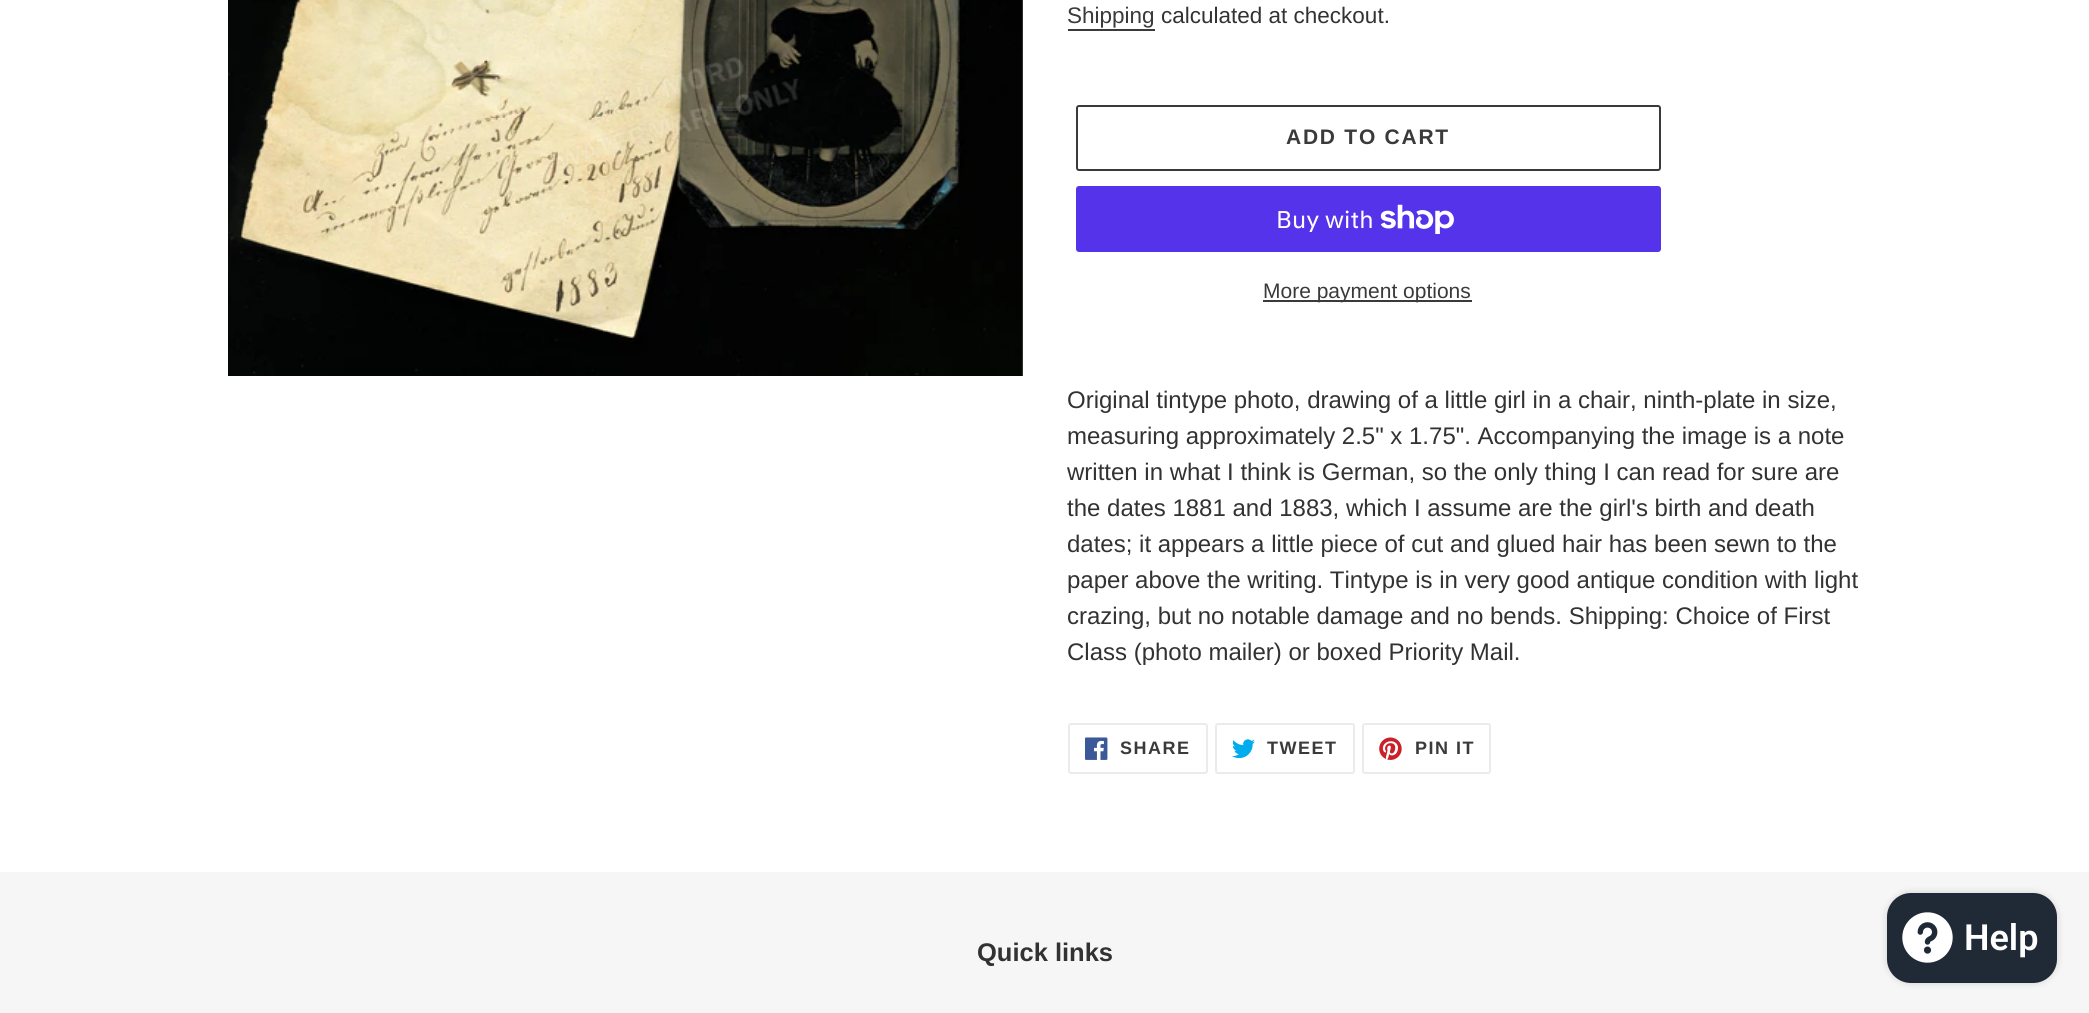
import math
import cairocffi as cairo

surface = cairo.ImageSurface(cairo.FORMAT_RGB24, 2089, 1013)
cr = cairo.Context(surface)
options = cairo.FontOptions()
options.set_hint_metrics(cairo.HINT_METRICS_OFF)
options.set_hint_style(cairo.HINT_STYLE_NONE)
cr.set_font_options(options)
cr.set_miter_limit(4)


def use_color(code):
    cr.set_source_rgb(*(v / 255 for v in bytes.fromhex(code[-6:])))


def spaced_text(x, y, s, letter, word):
    cr.move_to(x, y)
    for ch in s:
        cr.show_text(ch)
        cr.rel_move_to(letter + word * (ch == ' '), 0)


def round_rect(x, y, w, h, r):
    cr.new_sub_path()
    for i, (u, v) in enumerate([(x + w - r, y + h - r), (x + r, y + h - r), (x + r, y + r), (x + w - r, y + r)]):
        cr.arc(u, v, r, i * math.pi / 2, (i + 1) * math.pi / 2)
    cr.close_path()


def shadow(x, y, w, h, r, blur, alpha):
    cr.push_group_with_content(cairo.CONTENT_ALPHA)
    cr.set_operator(cairo.OPERATOR_SOURCE)
    for i in range(15, -16, -2):
        e = blur * i / 6
        if min(w, h) + 2 * e > 0:
            cr.set_source_rgba(0, 0, 0, alpha * math.erfc((i - 1) / 8.5) / 2)
            round_rect(x - e, y - e, w + 2 * e, h + 2 * e, max(0, min(r + e + blur * .6, min(w, h) / 2 + e)))
            cr.fill()
    cr.mask(cr.pop_group())


def picture(path, x, y, w, h):
    cr.save()
    cr.set_source_surface(cairo.ImageSurface.create_from_png(path), x, y)
    cr.rectangle(x, y, w, h)
    cr.fill()
    cr.restore()


use_color("#ffffff")
cr.paint()
picture("img1.png", 228, 0, 795, 376)
cr.select_font_face("Liberation Sans")
cr.set_font_size(22.5)
use_color("#3a3a3a")
cr.move_to(1067, 23)
cr.show_text("Shipping")
cr.rectangle(1068, 29, 87, 2)
cr.fill()
use_color("#333232")
cr.move_to(1161, 23)
cr.show_text("calculated at checkout.")
round_rect(1077, 106, 583, 64, 2)
use_color("#3a3a3a")
cr.stroke()
cr.select_font_face("Liberation Sans", cairo.FONT_SLANT_NORMAL, cairo.FONT_WEIGHT_BOLD)
cr.set_font_size(21)
spaced_text(1286, 144, "ADD TO CART", 1.75, 0)
use_color("#5433eb")
round_rect(1076, 186, 585, 66, 3)
cr.fill()
cr.select_font_face("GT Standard")
cr.set_font_size(24)
use_color("#ffffff")
cr.move_to(1276, 228)
cr.show_text("Buy with")
picture("img2.png", 1380, 204, 74, 30)
use_color("#3a3a3a")
cr.rectangle(1263, 300, 209, 2)
cr.fill()
cr.select_font_face("Liberation Sans")
cr.set_font_size(21)
cr.move_to(1263, 298)
cr.show_text("More payment options")
cr.set_font_size(24)
use_color("#333232")
cr.move_to(1067, 408)
cr.show_text("Original tintype photo, drawing of a little girl in a chair, ninth-plate in size,")
cr.move_to(1067, 444)
cr.show_text("measuring approximately 2.5\" x 1.75\". Accompanying the image is a note")
cr.move_to(1067, 480)
cr.show_text("written in what I think is German, so the only thing I can read for sure are")
cr.move_to(1067, 516)
cr.show_text("the dates 1881 and 1883, which I assume are the girl's birth and death")
cr.move_to(1067, 552)
cr.show_text("dates; it appears a little piece of cut and glued hair has been sewn to the")
cr.move_to(1067, 588)
cr.show_text("paper above the writing. Tintype is in very good antique condition with light")
cr.move_to(1067, 624)
cr.show_text("crazing, but no notable damage and no bends. Shipping: Choice of First")
cr.move_to(1067, 660)
cr.show_text("Class (photo mailer) or boxed Priority Mail.")
round_rect(1069, 724, 138, 49, 2)
use_color("#ebebeb")
cr.stroke()
picture("img3.png", 1085, 737, 23, 23)
cr.select_font_face("Liberation Sans", cairo.FONT_SLANT_NORMAL, cairo.FONT_WEIGHT_BOLD)
cr.set_font_size(18)
use_color("#3a3a3a")
spaced_text(1120, 754, "SHARE", 1.5, 0)
round_rect(1216, 724, 138, 49, 2)
use_color("#ebebeb")
cr.stroke()
picture("img4.png", 1232, 739, 23, 20)
use_color("#3a3a3a")
spaced_text(1267, 754, "TWEET", 1.5, 0)
round_rect(1363, 724, 127, 49, 2)
use_color("#ebebeb")
cr.stroke()
picture("img5.png", 1379, 737, 23, 23)
use_color("#3a3a3a")
spaced_text(1415, 754, "PIN IT", 1.5, 0)
use_color("#f6f6f6")
cr.rectangle(0, 872, 2089, 141)
cr.fill()
cr.set_font_size(25.5)
use_color("#333232")
cr.move_to(977, 961)
cr.show_text("Quick links")
use_color("#000000")
shadow(1887, 893, 170, 90, 24, 4, 0.15)
use_color("#202a36")
round_rect(1887, 893, 170, 90, 24)
cr.fill()
picture("img6.png", 1902, 912, 51, 51)
cr.select_font_face("Roboto SemiBold")
cr.set_font_size(36)
use_color("#ffffff")
cr.move_to(1964, 950)
cr.show_text("Help")
surface.write_to_png("result.png")
